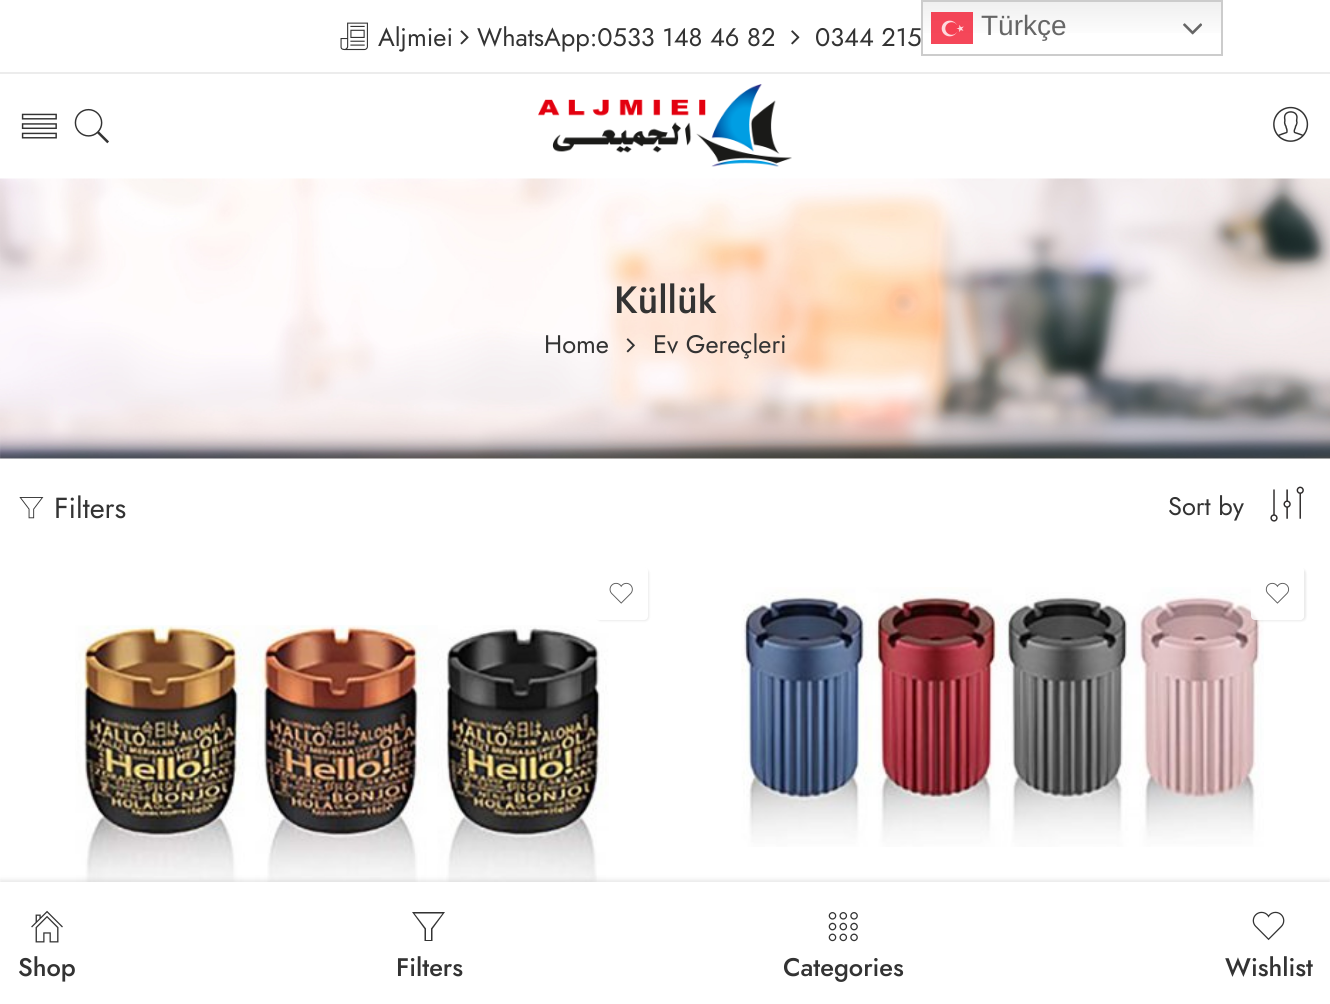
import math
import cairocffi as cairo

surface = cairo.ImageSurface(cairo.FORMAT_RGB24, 1330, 1004)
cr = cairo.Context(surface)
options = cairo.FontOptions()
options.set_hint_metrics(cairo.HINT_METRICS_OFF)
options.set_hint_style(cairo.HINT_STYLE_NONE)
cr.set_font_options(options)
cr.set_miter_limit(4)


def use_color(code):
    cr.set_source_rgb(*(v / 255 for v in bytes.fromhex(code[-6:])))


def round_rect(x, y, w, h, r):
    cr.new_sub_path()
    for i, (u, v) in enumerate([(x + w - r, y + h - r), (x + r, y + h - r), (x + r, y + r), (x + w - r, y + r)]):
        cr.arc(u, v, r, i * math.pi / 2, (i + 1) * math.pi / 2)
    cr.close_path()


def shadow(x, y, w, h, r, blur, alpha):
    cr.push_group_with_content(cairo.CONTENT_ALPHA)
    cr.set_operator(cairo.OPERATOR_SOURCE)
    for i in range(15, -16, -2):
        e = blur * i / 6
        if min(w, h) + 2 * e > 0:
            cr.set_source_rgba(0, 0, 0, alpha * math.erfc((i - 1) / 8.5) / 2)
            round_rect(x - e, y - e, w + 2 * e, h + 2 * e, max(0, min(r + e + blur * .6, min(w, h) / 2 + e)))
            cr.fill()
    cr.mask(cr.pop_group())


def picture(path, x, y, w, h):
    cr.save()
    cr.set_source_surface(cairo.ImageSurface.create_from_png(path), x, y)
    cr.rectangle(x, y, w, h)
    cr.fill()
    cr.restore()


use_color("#ffffff")
cr.paint()
gradient = cairo.LinearGradient(1072, 0, 1072, 56)
gradient.add_color_stop_rgba(0, 0.937, 0.937, 0.937, 1)
gradient.add_color_stop_rgba(0.7, 1, 1, 1, 1)
cr.set_source(gradient)
cr.rectangle(923, 2, 298, 31)
cr.fill()
cr.rectangle(922, 1, 300, 54)
use_color("#cccccc")
cr.stroke()
picture("img1.png", 931, 12, 42, 32)
cr.select_font_face("Liberation Sans")
cr.set_font_size(28)
use_color("#666666")
cr.move_to(981, 35)
cr.show_text("Türkçe")
picture("img2.png", 1183, 23, 19, 12)
use_color("#ececec")
cr.rectangle(0, 72, 1330, 2)
cr.fill()
picture("img3.png", 340, 22, 28, 29)
cr.select_font_face("Jost")
cr.set_font_size(25.4)
use_color("#333333")
cr.move_to(378, 46)
cr.show_text("Aljmiei")
picture("img4.png", 460, 30, 9, 15)
cr.move_to(477, 46)
cr.show_text("WhatsApp:0533 148 46 82")
picture("img5.png", 791, 30, 9, 15)
cr.move_to(815, 46)
cr.show_text("0344 215")
picture("img6.png", 21, 113, 36, 26)
picture("img7.png", 74, 108, 35, 36)
picture("img8.png", 538, 84, 254, 83)
picture("img9.png", 1273, 106, 36, 36)
picture("img10.png", 0, 178, 1330, 281)
cr.select_font_face("Jost Medium")
cr.set_font_size(38)
cr.move_to(614, 313)
cr.show_text("Küllük")
cr.select_font_face("Jost")
cr.set_font_size(25.4)
cr.move_to(544, 353)
cr.show_text("Home")
picture("img11.png", 626, 338, 9, 15)
cr.move_to(653, 353)
cr.show_text("Ev Gereçleri")
picture("img12.png", 19, 497, 25, 22)
cr.set_font_size(29)
cr.move_to(54, 518)
cr.show_text("Filters")
cr.set_font_size(25.4)
cr.move_to(1168, 515)
cr.show_text("Sort by")
picture("img13.png", 1270, 486, 34, 36)
use_color("#333333")
shadow(597, 569, 52, 52, 4, 1, 0.1)
use_color("#ffffff")
round_rect(595, 567, 53, 53, 4)
cr.fill()
picture("img14.png", 609, 582, 24, 22)
picture("img15.png", 75, 625, 534, 257)
picture("img16.png", 741, 587, 523, 260)
cr.save()
cr.set_fill_rule(cairo.FILL_RULE_EVEN_ODD)
cr.new_path()
cr.move_to(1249, 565)
cr.line_to(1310, 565)
cr.line_to(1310, 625)
cr.line_to(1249, 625)
cr.close_path()
cr.move_to(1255, 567)
cr.line_to(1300, 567)
cr.curve_to(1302, 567, 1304, 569, 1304, 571)
cr.line_to(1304, 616)
cr.curve_to(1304, 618, 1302, 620, 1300, 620)
cr.line_to(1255, 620)
cr.curve_to(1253, 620, 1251, 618, 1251, 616)
cr.line_to(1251, 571)
cr.curve_to(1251, 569, 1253, 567, 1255, 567)
cr.close_path()
cr.clip()
use_color("#000000")
shadow(1253, 569, 53, 52, 4, 1, 0.08)
cr.restore()
cr.set_source_rgba(1, 1, 1, 0.8)
round_rect(1251, 567, 53, 53, 4)
cr.fill()
picture("img17.png", 1265, 582, 25, 22)
use_color("#000000")
shadow(0, 880, 1330, 123, 0, 2.5, 0.1)
use_color("#ffffff")
cr.rectangle(0, 882, 1330, 122)
cr.fill()
picture("img18.png", 31, 910, 32, 33)
cr.select_font_face("Jost Medium")
use_color("#333333")
cr.move_to(18, 976)
cr.show_text("Shop")
cr.new_path()
cr.move_to(432.5, 941)
cr.line_to(424.5, 941)
cr.line_to(424.5, 929)
cr.line_to(412, 912)
cr.line_to(445, 912)
cr.line_to(432.5, 929)
cr.close_path()
cr.move_to(426, 940)
cr.line_to(431, 940)
cr.line_to(431, 928.5)
cr.line_to(442.5, 913.5)
cr.line_to(414.5, 913.5)
cr.line_to(426, 928.5)
cr.close_path()
cr.fill()
cr.move_to(396, 976)
cr.show_text("Filters")
picture("img19.png", 828, 912, 30, 30)
cr.move_to(783, 976)
cr.show_text("Categories")
picture("img20.png", 1252, 911, 33, 30)
cr.move_to(1225, 976)
cr.show_text("Wishlist")
surface.write_to_png("result.png")
